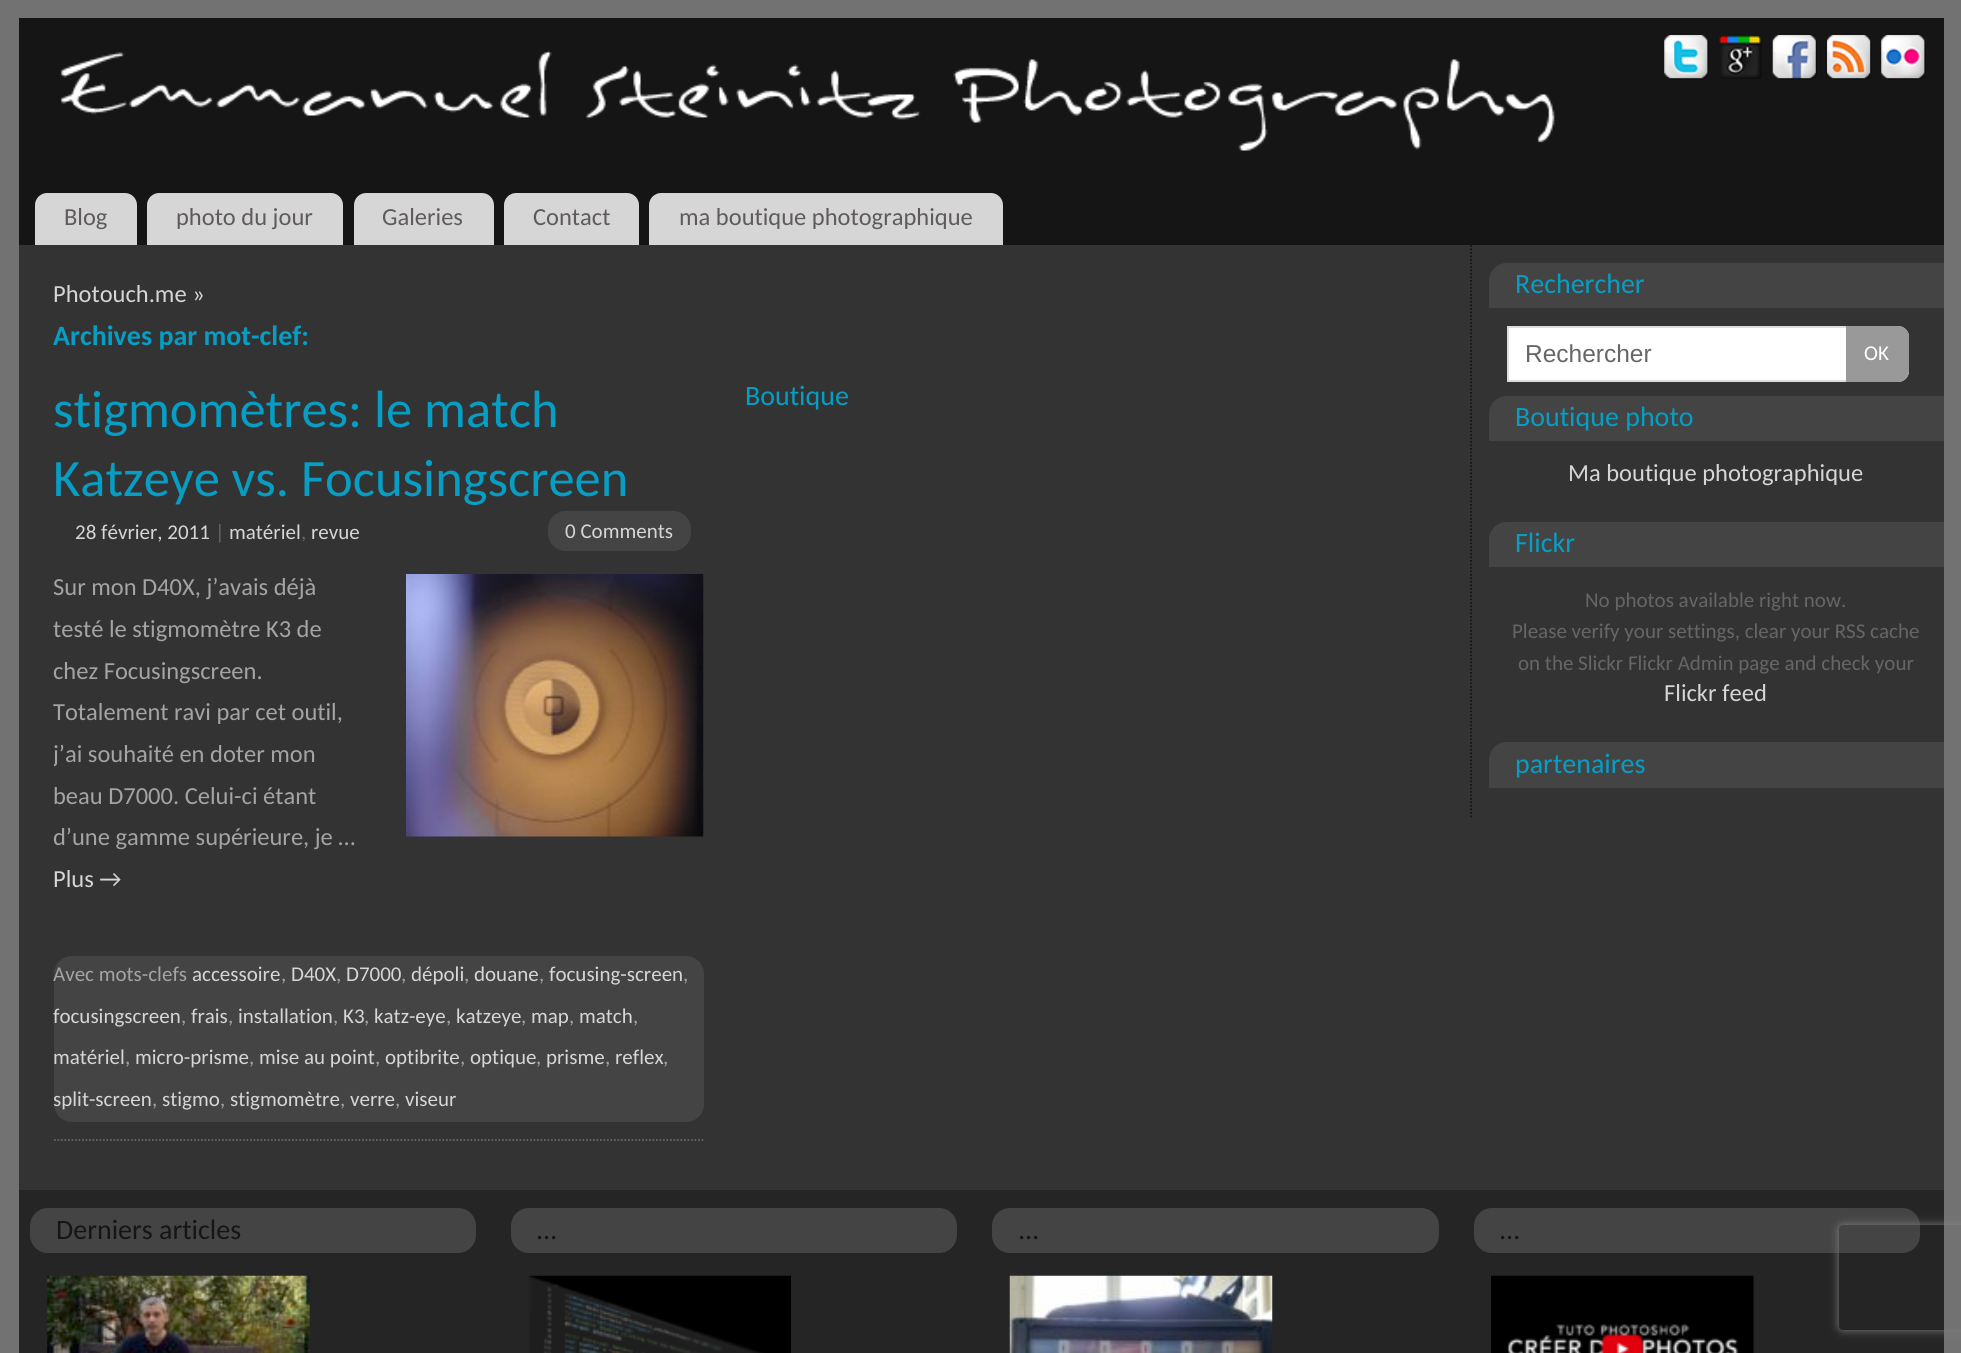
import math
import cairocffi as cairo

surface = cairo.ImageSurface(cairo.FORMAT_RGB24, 1961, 1353)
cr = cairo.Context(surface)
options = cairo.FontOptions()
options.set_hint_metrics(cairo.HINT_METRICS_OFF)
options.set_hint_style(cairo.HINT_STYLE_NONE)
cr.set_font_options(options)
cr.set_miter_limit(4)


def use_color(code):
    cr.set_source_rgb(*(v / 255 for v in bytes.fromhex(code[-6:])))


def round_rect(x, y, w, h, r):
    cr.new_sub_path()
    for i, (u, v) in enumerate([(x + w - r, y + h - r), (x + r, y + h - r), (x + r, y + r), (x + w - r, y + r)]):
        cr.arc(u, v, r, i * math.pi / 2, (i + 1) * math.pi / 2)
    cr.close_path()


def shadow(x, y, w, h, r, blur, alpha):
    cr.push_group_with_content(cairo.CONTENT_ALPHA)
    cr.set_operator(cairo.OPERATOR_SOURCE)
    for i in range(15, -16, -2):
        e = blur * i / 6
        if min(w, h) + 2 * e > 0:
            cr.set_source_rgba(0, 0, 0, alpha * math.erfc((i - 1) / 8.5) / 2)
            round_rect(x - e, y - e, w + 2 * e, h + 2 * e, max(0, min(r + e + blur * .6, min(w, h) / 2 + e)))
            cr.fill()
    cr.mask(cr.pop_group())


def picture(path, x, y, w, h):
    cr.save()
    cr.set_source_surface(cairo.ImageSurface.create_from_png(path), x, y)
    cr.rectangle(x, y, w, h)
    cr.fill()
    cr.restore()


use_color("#727272")
cr.paint()
use_color("#151515")
cr.rectangle(19, 18, 1925, 227)
cr.fill()
picture("img1.png", 60, 50, 1495, 101)
picture("img2.png", 1664, 35, 45, 45)
picture("img3.png", 1719, 35, 43, 44)
picture("img4.png", 1772, 35, 45, 45)
picture("img5.png", 1827, 35, 45, 45)
picture("img6.png", 1881, 35, 45, 45)
use_color("#d6d6d6")
cr.new_path()
cr.move_to(47, 193)
cr.line_to(125, 193)
cr.curve_to(131.5, 193, 137, 198.5, 137, 205)
cr.line_to(137, 245)
cr.line_to(35, 245)
cr.line_to(35, 205)
cr.curve_to(35, 198.5, 40.5, 193, 47, 193)
cr.close_path()
cr.fill()
cr.select_font_face("Carlito")
cr.set_font_size(24.5)
use_color("#5f5b5b")
cr.move_to(64, 225)
cr.show_text("Blog")
use_color("#d6d6d6")
cr.new_path()
cr.move_to(159, 193)
cr.line_to(331, 193)
cr.curve_to(337.5, 193, 343, 198.5, 343, 205)
cr.line_to(343, 245)
cr.line_to(147, 245)
cr.line_to(147, 205)
cr.curve_to(147, 198.5, 152.5, 193, 159, 193)
cr.close_path()
cr.fill()
use_color("#5f5b5b")
cr.move_to(176, 225)
cr.show_text("photo du jour")
use_color("#d6d6d6")
cr.new_path()
cr.move_to(366, 193)
cr.line_to(482, 193)
cr.curve_to(488.5, 193, 494, 198.5, 494, 205)
cr.line_to(494, 245)
cr.line_to(354, 245)
cr.line_to(354, 205)
cr.curve_to(354, 198.5, 359.5, 193, 366, 193)
cr.close_path()
cr.fill()
use_color("#5f5b5b")
cr.move_to(382, 225)
cr.show_text("Galeries")
use_color("#d6d6d6")
cr.new_path()
cr.move_to(516, 193)
cr.line_to(627, 193)
cr.curve_to(633.5, 193, 639, 198.5, 639, 205)
cr.line_to(639, 245)
cr.line_to(504, 245)
cr.line_to(504, 205)
cr.curve_to(504, 198.5, 509.5, 193, 516, 193)
cr.close_path()
cr.fill()
use_color("#5f5b5b")
cr.move_to(533, 225)
cr.show_text("Contact")
use_color("#d6d6d6")
cr.new_path()
cr.move_to(661, 193)
cr.line_to(991, 193)
cr.curve_to(997.5, 193, 1003, 198.5, 1003, 205)
cr.line_to(1003, 245)
cr.line_to(649, 245)
cr.line_to(649, 205)
cr.curve_to(649, 198.5, 654.5, 193, 661, 193)
cr.close_path()
cr.fill()
use_color("#5f5b5b")
cr.move_to(679, 225)
cr.show_text("ma boutique photographique")
use_color("#333333")
cr.rectangle(19, 245, 1925, 945)
cr.fill()
use_color("#d6d6d6")
cr.move_to(53, 302)
cr.show_text("Photouch.me »")
cr.select_font_face("Carlito", cairo.FONT_SLANT_NORMAL, cairo.FONT_WEIGHT_BOLD)
cr.set_font_size(28)
use_color("#069ec4")
cr.move_to(53, 345)
cr.show_text("Archives par mot-clef:")
cr.new_path()
cr.move_to(54, 1140)
cr.line_to(703.5, 1140)
use_color("#666666")
cr.set_line_width(1.8)
cr.set_dash([1.75, 1.75])
cr.stroke()
cr.select_font_face("Carlito")
cr.set_font_size(52.5)
use_color("#069ec4")
cr.move_to(53, 427)
cr.show_text("stigmomètres: le match")
cr.move_to(53, 496)
cr.show_text("Katzeye vs. Focusingscreen")
cr.set_font_size(21)
use_color("#d6d6d6")
cr.move_to(75, 539)
cr.show_text("28 février, 2011")
use_color("#666666")
cr.move_to(215, 539)
cr.show_text("|")
use_color("#d6d6d6")
cr.move_to(229, 539)
cr.show_text("matériel")
use_color("#666666")
cr.move_to(301, 539)
cr.show_text(",")
use_color("#d6d6d6")
cr.move_to(311, 539)
cr.show_text("revue")
use_color("#444444")
round_rect(548, 511, 143, 40, 18)
cr.fill()
use_color("#d6d6d6")
cr.move_to(565, 538)
cr.show_text("0 Comments")
cr.set_font_size(24.5)
use_color("#a4a4a4")
cr.move_to(53, 595)
cr.show_text("Sur mon D40X, j’avais déjà")
cr.move_to(53, 637)
cr.show_text("testé le stigmomètre K3 de")
cr.move_to(53, 679)
cr.show_text("chez Focusingscreen.")
cr.move_to(53, 720)
cr.show_text("Totalement ravi par cet outil,")
cr.save()
cr.rectangle(54, 375, 650, 764)
cr.clip()
cr.move_to(53, 762)
cr.show_text("j’ai souhaité en doter mon")
cr.restore()
cr.move_to(53, 804)
cr.show_text("beau D7000. Celui-ci étant")
cr.move_to(53, 845)
cr.show_text("d’une gamme supérieure, je …")
use_color("#d6d6d6")
cr.move_to(53, 887)
cr.show_text("Plus →")
picture("img7.png", 406, 574, 298, 263)
use_color("#444444")
round_rect(54, 956, 650, 166, 18)
cr.fill()
cr.set_font_size(21)
use_color("#a4a4a4")
cr.move_to(53, 981)
cr.show_text("Avec mots-clefs")
use_color("#d6d6d6")
cr.move_to(192, 981)
cr.show_text("accessoire")
use_color("#a4a4a4")
cr.move_to(281, 981)
cr.show_text(",")
use_color("#d6d6d6")
cr.move_to(291, 981)
cr.show_text("D40X")
use_color("#a4a4a4")
cr.move_to(336, 981)
cr.show_text(",")
use_color("#d6d6d6")
cr.move_to(346, 981)
cr.show_text("D7000")
use_color("#a4a4a4")
cr.move_to(401, 981)
cr.show_text(",")
use_color("#d6d6d6")
cr.move_to(411, 981)
cr.show_text("dépoli")
use_color("#a4a4a4")
cr.move_to(464, 981)
cr.show_text(",")
use_color("#d6d6d6")
cr.move_to(474, 981)
cr.show_text("douane")
use_color("#a4a4a4")
cr.move_to(539, 981)
cr.show_text(",")
use_color("#d6d6d6")
cr.move_to(549, 981)
cr.show_text("focusing-screen")
use_color("#a4a4a4")
cr.move_to(683, 981)
cr.show_text(",")
use_color("#d6d6d6")
cr.move_to(53, 1023)
cr.show_text("focusingscreen")
use_color("#a4a4a4")
cr.move_to(181, 1023)
cr.show_text(",")
use_color("#d6d6d6")
cr.move_to(191, 1023)
cr.show_text("frais")
use_color("#a4a4a4")
cr.move_to(228, 1023)
cr.show_text(",")
use_color("#d6d6d6")
cr.move_to(238, 1023)
cr.show_text("installation")
use_color("#a4a4a4")
cr.move_to(333, 1023)
cr.show_text(",")
use_color("#d6d6d6")
cr.move_to(343, 1023)
cr.show_text("K3")
use_color("#a4a4a4")
cr.move_to(364, 1023)
cr.show_text(",")
use_color("#d6d6d6")
cr.move_to(374, 1023)
cr.show_text("katz-eye")
use_color("#a4a4a4")
cr.move_to(446, 1023)
cr.show_text(",")
use_color("#d6d6d6")
cr.move_to(456, 1023)
cr.show_text("katzeye")
use_color("#a4a4a4")
cr.move_to(521, 1023)
cr.show_text(",")
use_color("#d6d6d6")
cr.move_to(531, 1023)
cr.show_text("map")
use_color("#a4a4a4")
cr.move_to(569, 1023)
cr.show_text(",")
use_color("#d6d6d6")
cr.move_to(579, 1023)
cr.show_text("match")
use_color("#a4a4a4")
cr.move_to(633, 1023)
cr.show_text(",")
use_color("#d6d6d6")
cr.move_to(53, 1064)
cr.show_text("matériel")
use_color("#a4a4a4")
cr.move_to(125, 1064)
cr.show_text(",")
use_color("#d6d6d6")
cr.move_to(135, 1064)
cr.show_text("micro-prisme")
use_color("#a4a4a4")
cr.move_to(249, 1064)
cr.show_text(",")
use_color("#d6d6d6")
cr.move_to(259, 1064)
cr.show_text("mise au point")
use_color("#a4a4a4")
cr.move_to(375, 1064)
cr.show_text(",")
use_color("#d6d6d6")
cr.move_to(385, 1064)
cr.show_text("optibrite")
use_color("#a4a4a4")
cr.move_to(460, 1064)
cr.show_text(",")
use_color("#d6d6d6")
cr.move_to(470, 1064)
cr.show_text("optique")
use_color("#a4a4a4")
cr.move_to(536, 1064)
cr.show_text(",")
use_color("#d6d6d6")
cr.move_to(546, 1064)
cr.show_text("prisme")
use_color("#a4a4a4")
cr.move_to(605, 1064)
cr.show_text(",")
use_color("#d6d6d6")
cr.move_to(615, 1064)
cr.show_text("reflex")
use_color("#a4a4a4")
cr.move_to(663, 1064)
cr.show_text(",")
use_color("#d6d6d6")
cr.move_to(53, 1106)
cr.show_text("split-screen")
use_color("#a4a4a4")
cr.move_to(152, 1106)
cr.show_text(",")
use_color("#d6d6d6")
cr.move_to(162, 1106)
cr.show_text("stigmo")
use_color("#a4a4a4")
cr.move_to(220, 1106)
cr.show_text(",")
use_color("#d6d6d6")
cr.move_to(230, 1106)
cr.show_text("stigmomètre")
use_color("#a4a4a4")
cr.move_to(340, 1106)
cr.show_text(",")
use_color("#d6d6d6")
cr.move_to(350, 1106)
cr.show_text("verre")
use_color("#a4a4a4")
cr.move_to(395, 1106)
cr.show_text(",")
use_color("#d6d6d6")
cr.move_to(405, 1106)
cr.show_text("viseur")
cr.set_font_size(28)
use_color("#069ec4")
cr.move_to(745, 405)
cr.show_text("Boutique")
cr.new_path()
cr.move_to(1471, 245)
cr.line_to(1471, 819)
use_color("#151515")
cr.stroke()
use_color("#444444")
cr.new_path()
cr.move_to(1507, 263)
cr.line_to(1944, 263)
cr.line_to(1944, 308)
cr.line_to(1489, 308)
cr.line_to(1489, 281)
cr.curve_to(1489, 271, 1497, 263, 1507, 263)
cr.close_path()
cr.fill()
use_color("#069ec4")
cr.move_to(1515, 293)
cr.show_text("Rechercher")
use_color("#ffffff")
cr.new_path()
cr.move_to(1508, 327)
cr.line_to(1898, 327)
cr.curve_to(1903.5, 327, 1908, 331.5, 1908, 337)
cr.line_to(1908, 371)
cr.curve_to(1908, 376.5, 1903.5, 381, 1898, 381)
cr.line_to(1508, 381)
cr.close_path()
cr.fill_preserve()
use_color("#dddddd")
cr.set_line_width(2)
cr.set_dash([])
cr.stroke()
cr.select_font_face("Liberation Sans")
cr.set_font_size(24.5)
use_color("#666666")
cr.move_to(1525, 362)
cr.show_text("Rechercher")
use_color("#999999")
cr.new_path()
cr.move_to(1846, 326)
cr.line_to(1898, 326)
cr.curve_to(1904, 326, 1909, 331, 1909, 337)
cr.line_to(1909, 371)
cr.curve_to(1909, 377, 1904, 382, 1898, 382)
cr.line_to(1846, 382)
cr.close_path()
cr.fill()
cr.select_font_face("Carlito")
cr.set_font_size(21)
use_color("#ffffff")
cr.move_to(1864, 360)
cr.show_text("OK")
use_color("#444444")
cr.new_path()
cr.move_to(1507, 396)
cr.line_to(1944, 396)
cr.line_to(1944, 441)
cr.line_to(1489, 441)
cr.line_to(1489, 414)
cr.curve_to(1489, 404, 1497, 396, 1507, 396)
cr.close_path()
cr.fill()
cr.set_font_size(28)
use_color("#069ec4")
cr.move_to(1515, 426)
cr.show_text("Boutique photo")
cr.set_font_size(24.5)
use_color("#d6d6d6")
cr.move_to(1568, 481)
cr.show_text("Ma boutique photographique")
use_color("#444444")
cr.new_path()
cr.move_to(1507, 522)
cr.line_to(1944, 522)
cr.line_to(1944, 567)
cr.line_to(1489, 567)
cr.line_to(1489, 540)
cr.curve_to(1489, 530, 1497, 522, 1507, 522)
cr.close_path()
cr.fill()
cr.set_font_size(28)
use_color("#069ec4")
cr.move_to(1515, 552)
cr.show_text("Flickr")
cr.set_font_size(21)
use_color("#666666")
cr.move_to(1585, 607)
cr.show_text("No photos available right now.")
cr.move_to(1512, 638)
cr.show_text("Please verify your settings, clear your RSS cache")
cr.move_to(1518, 670)
cr.show_text("on the Slickr Flickr Admin page and check your")
cr.set_font_size(24.5)
use_color("#d6d6d6")
cr.move_to(1664, 701)
cr.show_text("Flickr feed")
use_color("#444444")
cr.new_path()
cr.move_to(1507, 742)
cr.line_to(1944, 742)
cr.line_to(1944, 788)
cr.line_to(1489, 788)
cr.line_to(1489, 760)
cr.curve_to(1489, 750, 1497, 742, 1507, 742)
cr.close_path()
cr.fill()
cr.set_font_size(28)
use_color("#069ec4")
cr.move_to(1515, 773)
cr.show_text("partenaires")
use_color("#252525")
cr.rectangle(19, 1190, 1925, 163)
cr.fill()
use_color("#444444")
round_rect(30, 1208, 446, 45, 18)
cr.fill()
use_color("#151515")
cr.move_to(56, 1239)
cr.show_text("Derniers articles")
picture("img8.png", 47, 1275, 263, 78)
use_color("#444444")
round_rect(511, 1208, 446, 45, 18)
cr.fill()
use_color("#151515")
cr.move_to(537, 1239)
cr.show_text("…")
picture("img9.png", 528, 1275, 263, 78)
use_color("#444444")
round_rect(992, 1208, 447, 45, 18)
cr.fill()
use_color("#151515")
cr.move_to(1019, 1239)
cr.show_text("…")
picture("img10.png", 1009, 1275, 264, 78)
use_color("#444444")
round_rect(1474, 1208, 446, 45, 18)
cr.fill()
use_color("#151515")
cr.move_to(1500, 1239)
cr.show_text("…")
picture("img11.png", 1491, 1275, 263, 78)
cr.save()
cr.set_fill_rule(cairo.FILL_RULE_EVEN_ODD)
cr.new_path()
cr.move_to(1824, 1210)
cr.line_to(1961, 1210)
cr.line_to(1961, 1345)
cr.line_to(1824, 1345)
cr.close_path()
cr.move_to(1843, 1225)
cr.line_to(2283, 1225)
cr.curve_to(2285, 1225, 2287, 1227, 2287, 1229)
cr.line_to(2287, 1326)
cr.curve_to(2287, 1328, 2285, 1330, 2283, 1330)
cr.line_to(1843, 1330)
cr.curve_to(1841, 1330, 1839, 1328, 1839, 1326)
cr.line_to(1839, 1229)
cr.curve_to(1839, 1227, 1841, 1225, 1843, 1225)
cr.close_path()
cr.clip()
use_color("#808080")
shadow(1839, 1225, 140, 105, 4, 4.5, 1)
cr.restore()
surface.write_to_png("result.png")
